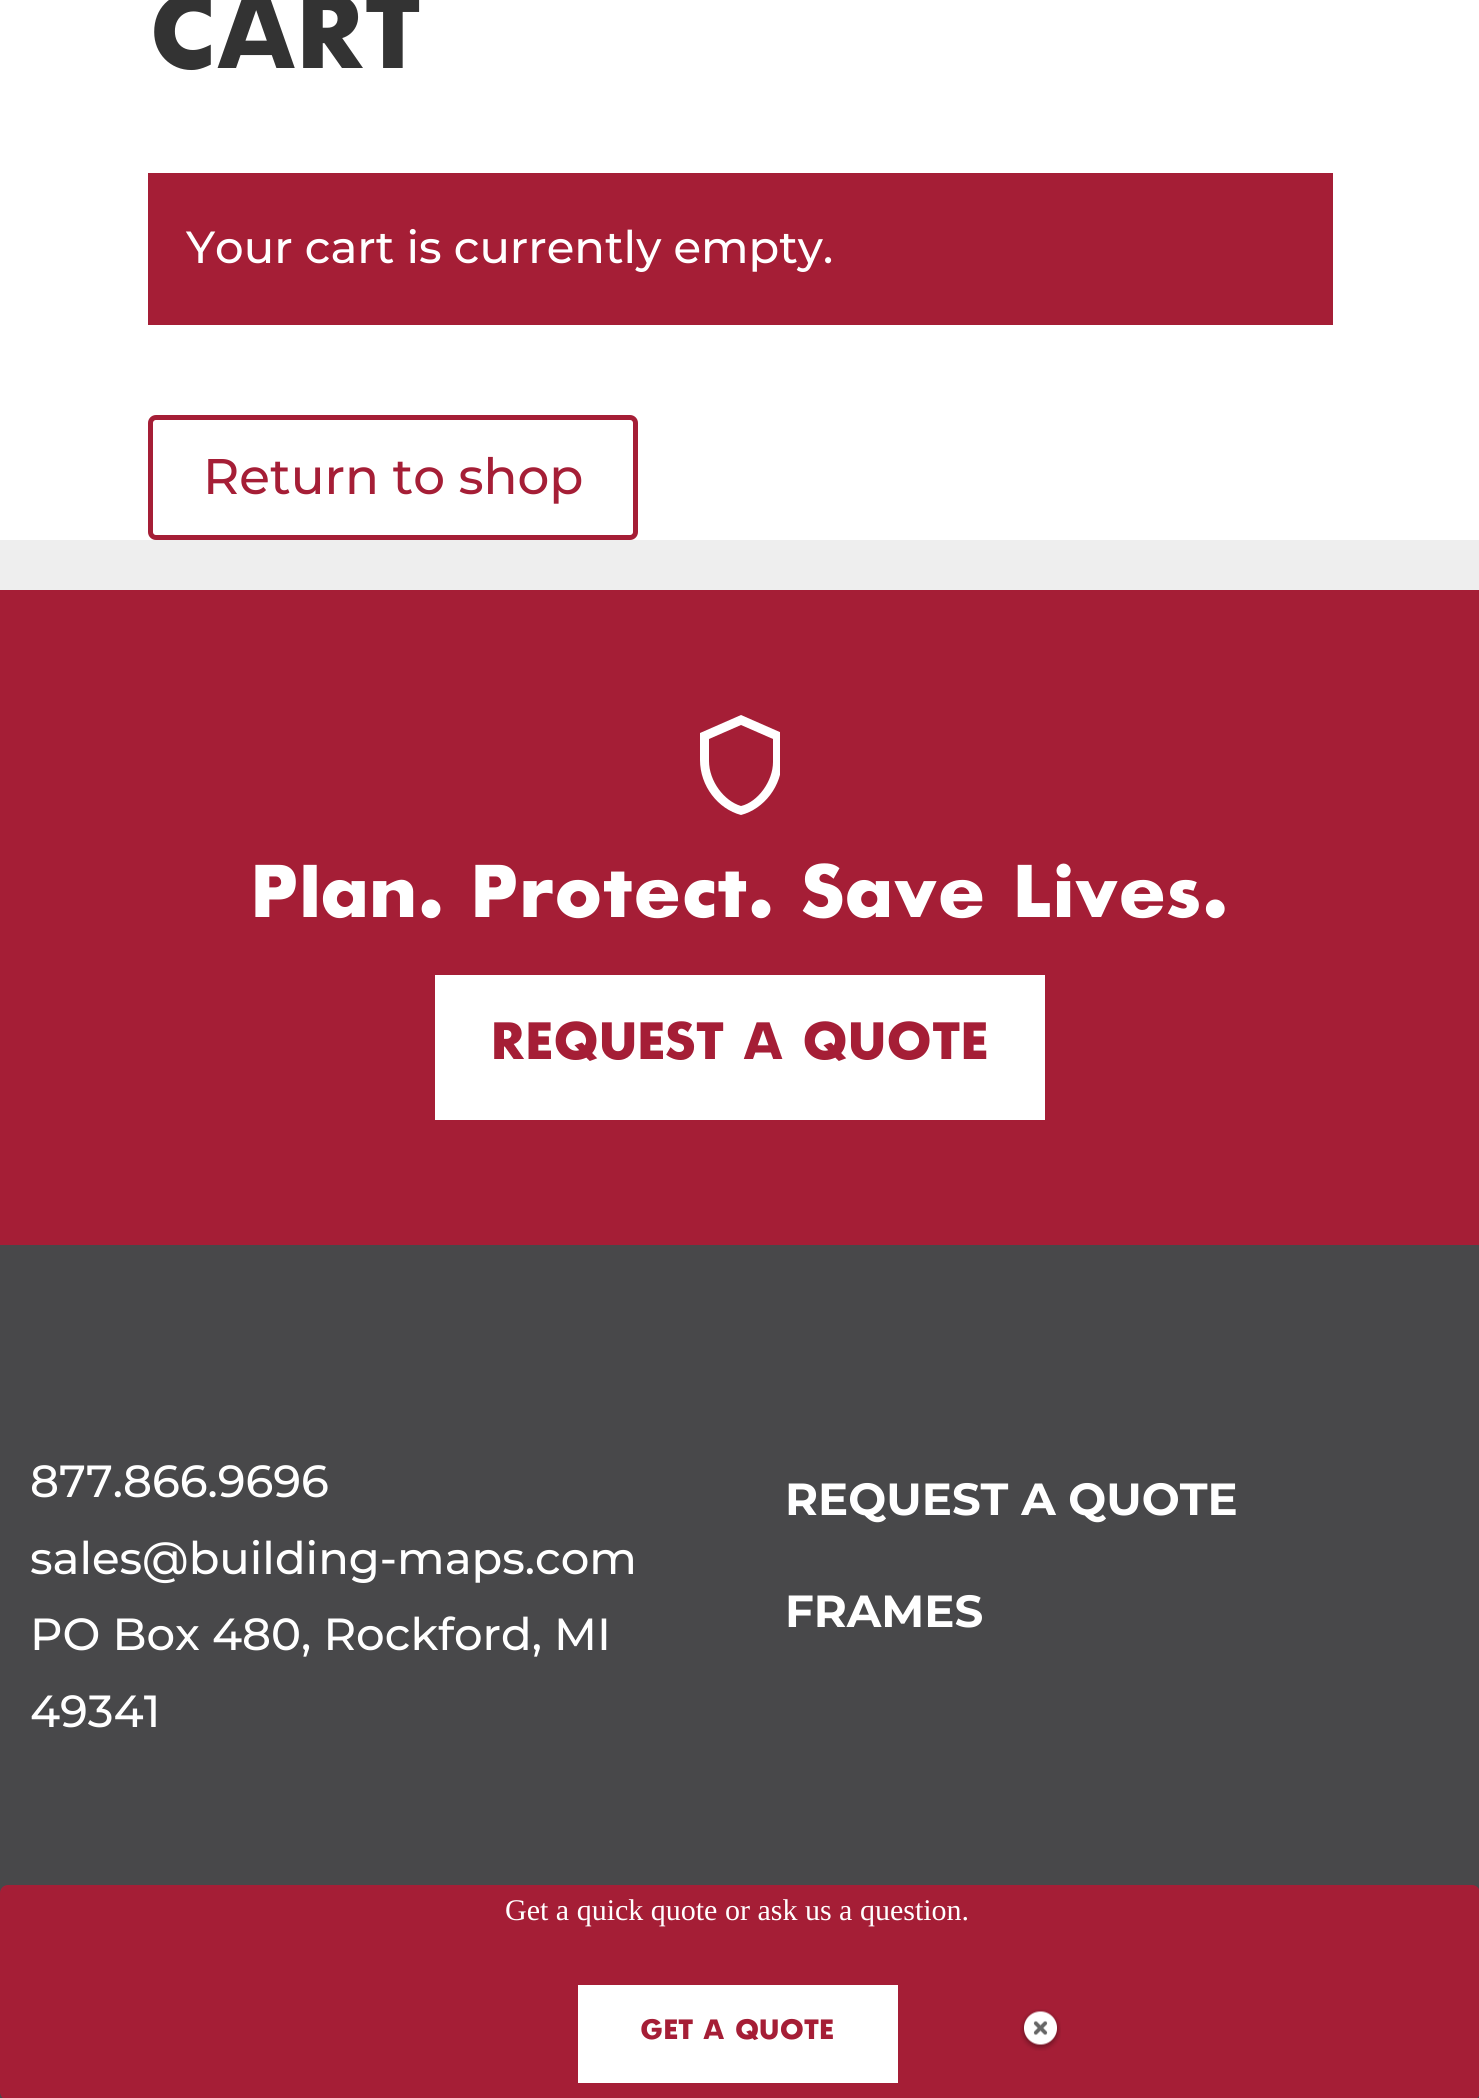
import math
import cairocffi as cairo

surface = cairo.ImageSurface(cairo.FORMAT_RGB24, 1479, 2098)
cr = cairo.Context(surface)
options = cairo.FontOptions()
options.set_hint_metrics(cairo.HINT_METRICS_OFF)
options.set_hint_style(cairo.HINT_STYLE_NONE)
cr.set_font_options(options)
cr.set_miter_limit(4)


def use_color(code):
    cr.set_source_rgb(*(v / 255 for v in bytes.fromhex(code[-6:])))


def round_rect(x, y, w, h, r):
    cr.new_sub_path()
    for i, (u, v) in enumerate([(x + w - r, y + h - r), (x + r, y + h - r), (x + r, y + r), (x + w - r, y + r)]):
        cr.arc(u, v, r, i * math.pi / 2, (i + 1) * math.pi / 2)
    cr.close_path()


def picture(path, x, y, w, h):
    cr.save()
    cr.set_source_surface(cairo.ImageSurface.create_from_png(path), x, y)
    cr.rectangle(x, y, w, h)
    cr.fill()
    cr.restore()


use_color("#eeeeee")
cr.paint()
use_color("#ffffff")
cr.rectangle(0, 0, 1479, 540)
cr.fill()
cr.select_font_face("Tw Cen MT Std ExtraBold")
cr.set_font_size(112.5)
use_color("#333333")
cr.move_to(148, 68)
cr.show_text("CART")
use_color("#a51e36")
cr.rectangle(148, 173, 1185, 152)
cr.fill()
cr.select_font_face("Montserrat Medium")
cr.set_font_size(45)
use_color("#ffffff")
cr.move_to(186, 263)
cr.show_text("Your cart is currently empty.")
round_rect(150.5, 417.5, 485, 120, 5.5)
use_color("#a51e36")
cr.set_line_width(5)
cr.stroke()
cr.set_font_size(50)
cr.move_to(203, 494)
cr.show_text("Return to shop")
cr.rectangle(0, 590, 1479, 655)
cr.fill()
cr.save()
cr.rectangle(700, 715, 80, 100)
cr.clip()
use_color("#ffffff")
cr.new_path()
cr.move_to(782, 760)
cr.curve_to(782, 786, 764, 809, 741, 815)
cr.curve_to(718, 809, 700, 786, 700, 760)
cr.line_to(700, 733)
cr.line_to(741, 715)
cr.line_to(782, 733)
cr.line_to(782, 760)
cr.move_to(741, 806)
cr.curve_to(758, 802, 773, 781, 773, 762)
cr.line_to(773, 739)
cr.line_to(741, 725)
cr.line_to(709, 739)
cr.line_to(709, 761)
cr.curve_to(709, 781, 724, 801, 741, 806)
cr.close_path()
cr.fill()
cr.restore()
cr.select_font_face("Tw Cen MT Std ExtraBold")
cr.set_font_size(80)
use_color("#ffffff")
cr.move_to(251, 917)
cr.show_text("Plan. Protect. Save Lives.")
cr.rectangle(435, 975, 610, 145)
cr.fill()
cr.set_font_size(56.25)
use_color("#a51e36")
cr.move_to(491, 1059)
cr.show_text("REQUEST A QUOTE")
use_color("#48484a")
cr.rectangle(0, 1245, 1479, 853)
cr.fill()
cr.select_font_face("Montserrat Medium")
cr.set_font_size(45)
use_color("#ffffff")
cr.move_to(30, 1497)
cr.show_text("877.866.9696")
cr.move_to(30, 1574)
cr.show_text("sales@building-maps.com")
cr.move_to(30, 1650)
cr.show_text("PO Box 480, Rockford, MI")
cr.move_to(30, 1727)
cr.show_text("49341")
cr.select_font_face("Montserrat", cairo.FONT_SLANT_NORMAL, cairo.FONT_WEIGHT_BOLD)
cr.move_to(785, 1515)
cr.show_text("REQUEST A QUOTE")
cr.move_to(785, 1627)
cr.show_text("FRAMES")
use_color("#a51e36")
round_rect(0, 1885, 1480, 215, 8)
cr.fill()
cr.select_font_face("Liberation Serif")
cr.set_font_size(30)
use_color("#ffffff")
cr.move_to(505, 1920)
cr.show_text("Get a quick quote or ask us a question.")
cr.rectangle(578, 1985, 320, 98)
cr.fill()
cr.select_font_face("Tw Cen MT Std ExtraBold")
use_color("#a51e36")
cr.move_to(640, 2039)
cr.show_text("GET A QUOTE")
picture("img1.png", 1020, 2009, 41, 42)
surface.write_to_png("result.png")
